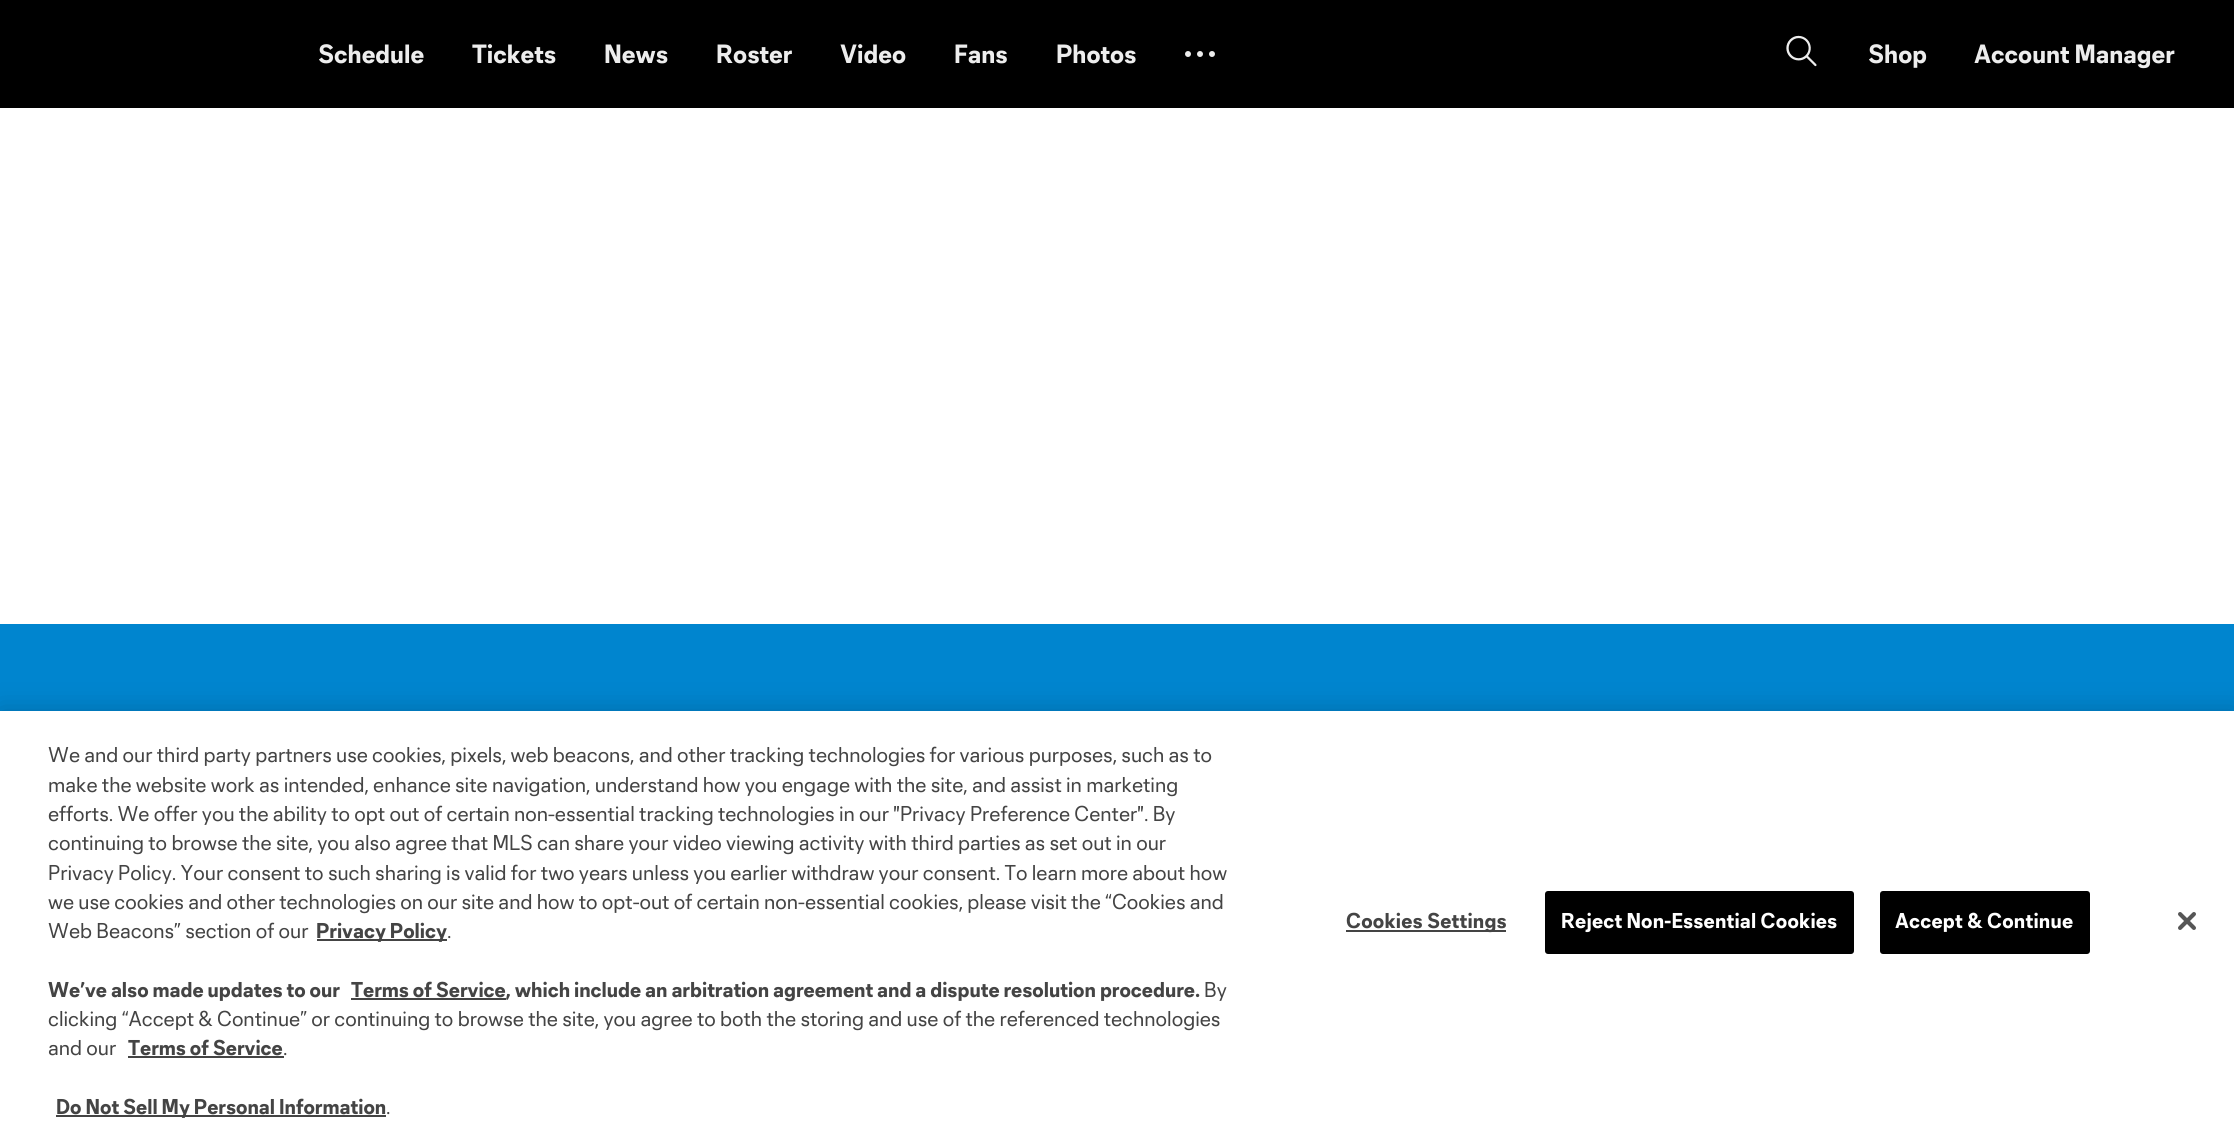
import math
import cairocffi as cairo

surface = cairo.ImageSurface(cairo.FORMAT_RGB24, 2234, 1137)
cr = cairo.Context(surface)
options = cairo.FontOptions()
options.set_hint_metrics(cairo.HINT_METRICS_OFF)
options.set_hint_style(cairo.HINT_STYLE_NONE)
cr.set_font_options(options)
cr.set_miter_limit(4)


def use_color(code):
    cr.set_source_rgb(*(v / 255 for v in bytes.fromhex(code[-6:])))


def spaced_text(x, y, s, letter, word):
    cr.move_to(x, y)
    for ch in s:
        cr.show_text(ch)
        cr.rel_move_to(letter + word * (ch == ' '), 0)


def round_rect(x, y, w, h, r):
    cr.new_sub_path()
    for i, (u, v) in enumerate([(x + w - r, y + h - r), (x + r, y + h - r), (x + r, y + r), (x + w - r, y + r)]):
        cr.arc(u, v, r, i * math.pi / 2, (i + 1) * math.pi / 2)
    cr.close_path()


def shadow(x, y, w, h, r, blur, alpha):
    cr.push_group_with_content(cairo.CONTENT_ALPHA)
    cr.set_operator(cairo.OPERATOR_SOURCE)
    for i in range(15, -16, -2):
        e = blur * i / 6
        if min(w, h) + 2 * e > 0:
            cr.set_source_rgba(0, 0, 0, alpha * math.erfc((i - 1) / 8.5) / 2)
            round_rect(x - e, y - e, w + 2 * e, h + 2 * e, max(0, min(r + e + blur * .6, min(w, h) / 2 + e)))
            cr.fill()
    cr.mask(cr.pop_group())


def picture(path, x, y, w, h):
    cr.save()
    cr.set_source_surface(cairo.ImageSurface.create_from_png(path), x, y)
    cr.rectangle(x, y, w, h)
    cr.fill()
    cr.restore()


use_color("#ffffff")
cr.paint()
use_color("#000000")
cr.rectangle(0, 0, 2234, 108)
cr.fill()
cr.select_font_face("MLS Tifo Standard", cairo.FONT_SLANT_NORMAL, cairo.FONT_WEIGHT_BOLD)
cr.set_font_size(24)
use_color("#ededed")
cr.move_to(318, 63)
cr.show_text("Schedule")
cr.move_to(472, 63)
cr.show_text("Tickets")
cr.move_to(604, 63)
cr.show_text("News")
cr.move_to(716, 63)
cr.show_text("Roster")
cr.move_to(840, 63)
cr.show_text("Video")
cr.move_to(954, 63)
cr.show_text("Fans")
cr.move_to(1056, 63)
cr.show_text("Photos")
picture("img1.png", 1185, 51, 30, 6)
picture("img2.png", 1786, 35, 31, 32)
cr.move_to(1868, 63)
cr.show_text("Shop")
cr.move_to(1974, 63)
cr.show_text("Account Manager")
use_color("#0085cf")
cr.rectangle(0, 624, 2234, 87)
cr.fill()
use_color("#000000")
shadow(0, 711, 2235, 426, 0, 13.5, 0.2)
use_color("#ffffff")
cr.rectangle(0, 711, 2234, 426)
cr.fill()
cr.select_font_face("MLS Tifo Standard")
cr.set_font_size(19.5)
use_color("#444444")
cr.move_to(48, 762)
cr.show_text("We and our third party partners use cookies, pixels, web beacons, and other tracking technologies for various purposes, such as to")
cr.move_to(48, 792)
cr.show_text("make the website work as intended, enhance site navigation, understand how you engage with the site, and assist in marketing")
cr.move_to(48, 821)
cr.show_text("efforts. We offer you the ability to opt out of certain non-essential tracking technologies in our \"Privacy Preference Center\". By")
cr.move_to(48, 850)
cr.show_text("continuing to browse the site, you also agree that MLS can share your video viewing activity with third parties as set out in our")
cr.move_to(48, 880)
cr.show_text("Privacy Policy. Your consent to such sharing is valid for two years unless you earlier withdraw your consent. To learn more about how")
cr.move_to(48, 909)
cr.show_text("we use cookies and other technologies on our site and how to opt-out of certain non-essential cookies, please visit the “Cookies and")
cr.move_to(48, 938)
cr.show_text("Web Beacons” section of our")
cr.rectangle(317, 939, 130, 2)
cr.fill()
cr.select_font_face("MLS Tifo Standard", cairo.FONT_SLANT_NORMAL, cairo.FONT_WEIGHT_BOLD)
cr.move_to(316, 938)
cr.show_text("Privacy Policy")
cr.select_font_face("MLS Tifo Standard")
cr.move_to(447, 938)
cr.show_text(".")
cr.select_font_face("MLS Tifo Standard", cairo.FONT_SLANT_NORMAL, cairo.FONT_WEIGHT_BOLD)
cr.move_to(48, 997)
cr.show_text("We’ve also made updates to our")
cr.rectangle(351, 998, 155, 2)
cr.fill()
cr.move_to(351, 997)
cr.show_text("Terms of Service, which include an arbitration agreement and a dispute resolution procedure.")
cr.select_font_face("MLS Tifo Standard")
cr.move_to(1204, 997)
cr.show_text("By")
cr.move_to(48, 1026)
cr.show_text("clicking “Accept & Continue” or continuing to browse the site, you agree to both the storing and use of the referenced technologies")
cr.move_to(48, 1055)
cr.show_text("and our")
cr.select_font_face("MLS Tifo Standard", cairo.FONT_SLANT_NORMAL, cairo.FONT_WEIGHT_BOLD)
cr.move_to(128, 1055)
cr.show_text("Terms of Service")
cr.rectangle(128, 1056, 156, 2)
cr.fill()
cr.select_font_face("MLS Tifo Standard")
cr.move_to(283, 1055)
cr.show_text(".")
cr.rectangle(56, 1115, 330, 2)
cr.fill()
cr.select_font_face("MLS Tifo Standard", cairo.FONT_SLANT_NORMAL, cairo.FONT_WEIGHT_BOLD)
cr.move_to(56, 1114)
cr.show_text("Do Not Sell My Personal Information")
cr.select_font_face("MLS Tifo Standard")
cr.move_to(386, 1114)
cr.show_text(".")
cr.rectangle(1346, 930, 160, 2)
cr.fill()
cr.select_font_face("MLS Tifo Standard", cairo.FONT_SLANT_NORMAL, cairo.FONT_WEIGHT_BOLD)
spaced_text(1346, 928, "Cookies Settings", 0.2, 0)
use_color("#000000")
round_rect(1546, 892, 307, 61, 2)
cr.fill_preserve()
cr.stroke()
use_color("#ffffff")
spaced_text(1561, 928, "Reject Non-Essential Cookies", 0.2, 0)
use_color("#000000")
round_rect(1881, 892, 208, 61, 2)
cr.fill_preserve()
cr.stroke()
use_color("#ffffff")
spaced_text(1895, 928, "Accept & Continue", 0.2, 0)
picture("img3.png", 2178, 912, 18, 18)
surface.write_to_png("result.png")
